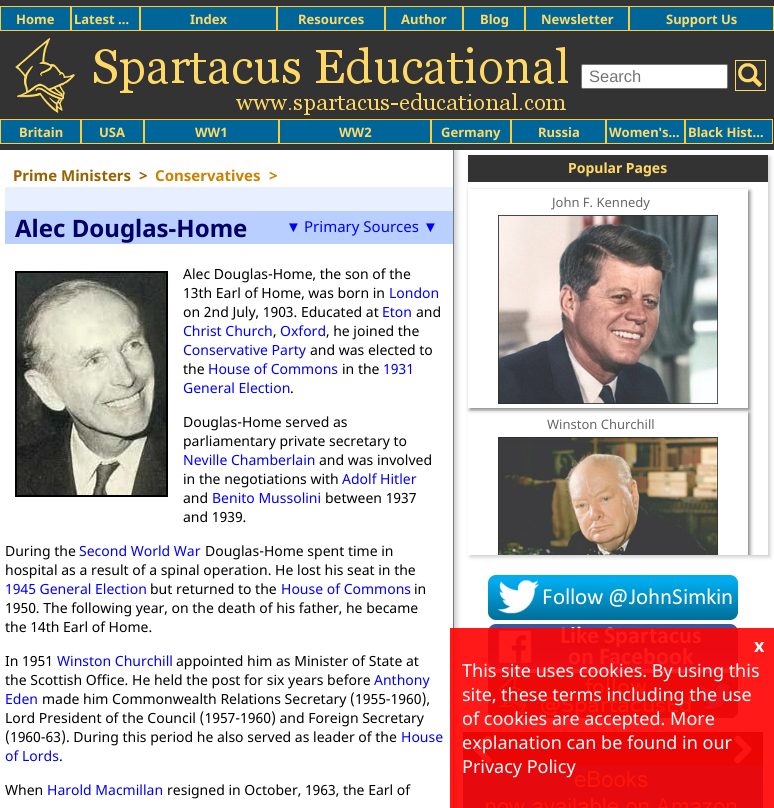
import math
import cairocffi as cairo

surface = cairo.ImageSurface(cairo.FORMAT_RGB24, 774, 808)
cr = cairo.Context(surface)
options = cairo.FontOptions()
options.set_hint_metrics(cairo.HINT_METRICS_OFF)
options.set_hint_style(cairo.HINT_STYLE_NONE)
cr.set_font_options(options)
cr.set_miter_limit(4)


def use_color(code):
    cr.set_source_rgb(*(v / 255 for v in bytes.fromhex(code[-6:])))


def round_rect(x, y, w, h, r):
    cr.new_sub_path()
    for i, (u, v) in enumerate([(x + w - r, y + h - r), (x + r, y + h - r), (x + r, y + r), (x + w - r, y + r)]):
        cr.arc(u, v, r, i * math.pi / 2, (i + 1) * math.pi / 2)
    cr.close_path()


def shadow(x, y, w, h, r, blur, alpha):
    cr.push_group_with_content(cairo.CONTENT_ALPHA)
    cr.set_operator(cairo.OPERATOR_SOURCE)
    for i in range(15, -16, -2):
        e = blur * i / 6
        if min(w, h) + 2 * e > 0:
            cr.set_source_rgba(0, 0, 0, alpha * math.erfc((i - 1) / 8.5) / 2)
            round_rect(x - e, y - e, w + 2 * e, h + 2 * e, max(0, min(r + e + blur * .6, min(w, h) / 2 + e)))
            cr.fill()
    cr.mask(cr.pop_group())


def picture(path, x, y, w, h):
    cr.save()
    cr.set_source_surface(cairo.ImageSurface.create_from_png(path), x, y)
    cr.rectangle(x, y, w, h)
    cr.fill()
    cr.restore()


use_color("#ffffff")
cr.paint()
use_color("#333333")
cr.rectangle(0, 0, 774, 150)
cr.fill()
use_color("#006699")
cr.rectangle(0.5, 6.5, 70, 24)
cr.fill_preserve()
use_color("#ffcc33")
cr.set_line_width(1)
cr.stroke()
cr.select_font_face("Noto Sans", cairo.FONT_SLANT_NORMAL, cairo.FONT_WEIGHT_BOLD)
cr.set_font_size(13)
use_color("#ffd966")
cr.move_to(16, 24)
cr.show_text("Home")
use_color("#006699")
cr.rectangle(71.5, 6.5, 68, 24)
cr.fill_preserve()
use_color("#ffcc33")
cr.stroke()
use_color("#ffd966")
cr.move_to(74, 24)
cr.show_text("Latest …")
use_color("#006699")
cr.rectangle(140.5, 6.5, 136, 24)
cr.fill_preserve()
use_color("#ffcc33")
cr.stroke()
use_color("#ffd966")
cr.move_to(190, 24)
cr.show_text("Index")
use_color("#006699")
cr.rectangle(277.5, 6.5, 107, 24)
cr.fill_preserve()
use_color("#ffcc33")
cr.stroke()
use_color("#ffd966")
cr.move_to(298, 24)
cr.show_text("Resources")
use_color("#006699")
cr.rectangle(385.5, 6.5, 77, 24)
cr.fill_preserve()
use_color("#ffcc33")
cr.stroke()
use_color("#ffd966")
cr.move_to(401, 24)
cr.show_text("Author")
use_color("#006699")
cr.rectangle(463.5, 6.5, 61, 24)
cr.fill_preserve()
use_color("#ffcc33")
cr.stroke()
use_color("#ffd966")
cr.move_to(480, 24)
cr.show_text("Blog")
use_color("#006699")
cr.rectangle(525.5, 6.5, 103, 24)
cr.fill_preserve()
use_color("#ffcc33")
cr.stroke()
use_color("#ffd966")
cr.move_to(541, 24)
cr.show_text("Newsletter")
use_color("#006699")
cr.rectangle(629.5, 6.5, 144, 24)
cr.fill_preserve()
use_color("#ffcc33")
cr.stroke()
use_color("#ffd966")
cr.move_to(666, 24)
cr.show_text("Support Us")
use_color("#006699")
cr.rectangle(0.5, 119.5, 80, 24)
cr.fill_preserve()
use_color("#ffcc33")
cr.stroke()
use_color("#ffd966")
cr.move_to(19, 137)
cr.show_text("Britain")
use_color("#006699")
cr.rectangle(81.5, 119.5, 62, 24)
cr.fill_preserve()
use_color("#ffcc33")
cr.stroke()
use_color("#ffd966")
cr.move_to(99, 137)
cr.show_text("USA")
use_color("#006699")
cr.rectangle(144.5, 119.5, 134, 24)
cr.fill_preserve()
use_color("#ffcc33")
cr.stroke()
use_color("#ffd966")
cr.move_to(195, 137)
cr.show_text("WW1")
use_color("#006699")
cr.rectangle(279.5, 119.5, 151, 24)
cr.fill_preserve()
use_color("#ffcc33")
cr.stroke()
use_color("#ffd966")
cr.move_to(339, 137)
cr.show_text("WW2")
use_color("#006699")
cr.rectangle(431.5, 119.5, 79, 24)
cr.fill_preserve()
use_color("#ffcc33")
cr.stroke()
use_color("#ffd966")
cr.move_to(441, 137)
cr.show_text("Germany")
use_color("#006699")
cr.rectangle(511.5, 119.5, 94, 24)
cr.fill_preserve()
use_color("#ffcc33")
cr.stroke()
use_color("#ffd966")
cr.move_to(538, 137)
cr.show_text("Russia")
use_color("#006699")
cr.rectangle(606.5, 119.5, 78, 24)
cr.fill_preserve()
use_color("#ffcc33")
cr.stroke()
use_color("#ffd966")
cr.move_to(609, 137)
cr.show_text("Women's…")
use_color("#006699")
cr.rectangle(685.5, 119.5, 87, 24)
cr.fill_preserve()
use_color("#ffcc33")
cr.stroke()
use_color("#ffd966")
cr.move_to(688, 137)
cr.show_text("Black Hist…")
picture("img1.png", 15, 38, 553, 77)
use_color("#ffffff")
round_rect(581.5, 64.5, 146, 24, 1.5)
cr.fill_preserve()
use_color("#767676")
cr.stroke()
cr.select_font_face("Liberation Sans")
cr.set_font_size(16.5)
use_color("#757575")
cr.move_to(589, 82)
cr.show_text("Search")
picture("img2.png", 738, 63, 24, 24)
cr.rectangle(735.5, 60.5, 30, 30)
use_color("#ffd966")
cr.stroke()
use_color("#333333")
cr.rectangle(463, 732, 300, 34)
cr.fill()
cr.save()
cr.rectangle(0, 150, 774, 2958)
cr.clip()
cr.rectangle(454, 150, 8, 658)
cr.clip()
use_color("#cccccc")
shadow(3, 150, 454, 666, 0, 2.5, 1)
cr.restore()
use_color("#777777")
cr.rectangle(453, 150, 1, 658)
cr.fill()
cr.select_font_face("Noto Sans", cairo.FONT_SLANT_NORMAL, cairo.FONT_WEIGHT_BOLD)
cr.set_font_size(15)
use_color("#996100")
cr.move_to(13, 181)
cr.show_text("Prime Ministers")
cr.move_to(139, 181)
cr.show_text(">")
use_color("#cc8100")
cr.move_to(155, 181)
cr.show_text("Conservatives")
cr.move_to(269, 181)
cr.show_text(">")
use_color("#e8efff")
cr.rectangle(5, 187, 448, 24)
cr.fill()
use_color("#b9cfff")
cr.rectangle(5, 211, 448, 33)
cr.fill()
cr.set_font_size(24)
use_color("#000066")
cr.move_to(15, 237)
cr.show_text("Alec Douglas-Home")
cr.select_font_face("Liberation Sans")
cr.set_font_size(15)
use_color("#0000ff")
cr.move_to(286, 232)
cr.show_text("▼")
cr.select_font_face("Noto Sans")
cr.move_to(304, 232)
cr.show_text("Primary Sources")
cr.select_font_face("Liberation Sans")
cr.move_to(423, 232)
cr.show_text("▼")
picture("img3.png", 15, 271, 153, 226)
cr.select_font_face("Noto Sans")
cr.set_font_size(14)
use_color("#000000")
cr.move_to(183, 279)
cr.show_text("Alec Douglas-Home, the son of the")
cr.move_to(183, 298)
cr.show_text("13th Earl of Home, was born in")
use_color("#0000ff")
cr.move_to(389, 298)
cr.show_text("London")
use_color("#000000")
cr.move_to(183, 317)
cr.show_text("on 2nd July, 1903. Educated at")
use_color("#0000ff")
cr.move_to(382, 317)
cr.show_text("Eton")
use_color("#000000")
cr.move_to(416, 317)
cr.show_text("and")
use_color("#0000ff")
cr.move_to(183, 336)
cr.show_text("Christ Church")
use_color("#000000")
cr.move_to(273, 336)
cr.show_text(",")
use_color("#0000ff")
cr.move_to(280, 336)
cr.show_text("Oxford")
use_color("#000000")
cr.move_to(326, 336)
cr.show_text(", he joined the")
use_color("#0000ff")
cr.move_to(183, 355)
cr.show_text("Conservative Party")
use_color("#000000")
cr.move_to(310, 355)
cr.show_text("and was elected to")
cr.move_to(183, 374)
cr.show_text("the")
use_color("#0000ff")
cr.move_to(208, 374)
cr.show_text("House of Commons")
use_color("#000000")
cr.move_to(342, 374)
cr.show_text("in the")
use_color("#0000ff")
cr.move_to(383, 374)
cr.show_text("1931")
cr.move_to(183, 393)
cr.show_text("General Election")
use_color("#000000")
cr.move_to(290, 393)
cr.show_text(".")
cr.move_to(183, 427)
cr.show_text("Douglas-Home served as")
cr.move_to(183, 446)
cr.show_text("parliamentary private secretary to")
use_color("#0000ff")
cr.move_to(183, 465)
cr.show_text("Neville Chamberlain")
use_color("#000000")
cr.move_to(319, 465)
cr.show_text("and was involved")
cr.move_to(183, 484)
cr.show_text("in the negotiations with")
use_color("#0000ff")
cr.move_to(342, 484)
cr.show_text("Adolf Hitler")
use_color("#000000")
cr.move_to(183, 503)
cr.show_text("and")
use_color("#0000ff")
cr.move_to(212, 503)
cr.show_text("Benito Mussolini")
use_color("#000000")
cr.move_to(325, 503)
cr.show_text("between 1937")
cr.move_to(183, 522)
cr.show_text("and 1939.")
cr.move_to(5, 556)
cr.show_text("During the")
use_color("#0000ff")
cr.move_to(79, 556)
cr.show_text("Second World War")
use_color("#000000")
cr.move_to(205, 556)
cr.show_text("Douglas-Home spent time in")
cr.move_to(5, 575)
cr.show_text("hospital as a result of a spinal operation. He lost his seat in the")
use_color("#0000ff")
cr.move_to(5, 594)
cr.show_text("1945 General Election")
use_color("#000000")
cr.move_to(150, 594)
cr.show_text("but returned to the")
use_color("#0000ff")
cr.move_to(281, 594)
cr.show_text("House of Commons")
use_color("#000000")
cr.move_to(414, 594)
cr.show_text("in")
cr.move_to(5, 613)
cr.show_text("1950. The following year, on the death of his father, he became")
cr.move_to(5, 632)
cr.show_text("the 14th Earl of Home.")
cr.move_to(5, 666)
cr.show_text("In 1951")
use_color("#0000ff")
cr.move_to(57, 666)
cr.show_text("Winston Churchill")
use_color("#000000")
cr.move_to(176, 666)
cr.show_text("appointed him as Minister of State at")
cr.move_to(5, 685)
cr.show_text("the Scottish Office. He held the post for six years before")
use_color("#0000ff")
cr.move_to(374, 685)
cr.show_text("Anthony")
cr.move_to(5, 704)
cr.show_text("Eden")
use_color("#000000")
cr.move_to(42, 704)
cr.show_text("made him Commonwealth Relations Secretary (1955-1960),")
cr.move_to(5, 723)
cr.show_text("Lord President of the Council (1957-1960) and Foreign Secretary")
cr.move_to(5, 742)
cr.show_text("(1960-63). During this period he also served as leader of the")
use_color("#0000ff")
cr.move_to(401, 742)
cr.show_text("House")
cr.move_to(5, 761)
cr.show_text("of Lords")
use_color("#000000")
cr.move_to(59, 761)
cr.show_text(".")
cr.move_to(5, 795)
cr.show_text("When")
use_color("#0000ff")
cr.move_to(47, 795)
cr.show_text("Harold Macmillan")
use_color("#000000")
cr.move_to(167, 795)
cr.show_text("resigned in October, 1963, the Earl of")
cr.save()
cr.set_fill_rule(cairo.FILL_RULE_EVEN_ODD)
cr.new_path()
cr.move_to(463, 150)
cr.line_to(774, 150)
cr.line_to(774, 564)
cr.line_to(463, 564)
cr.close_path()
cr.move_to(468, 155)
cr.line_to(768, 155)
cr.line_to(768, 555)
cr.line_to(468, 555)
cr.close_path()
cr.clip()
use_color("#cccccc")
shadow(470, 157, 300, 400, 0, 2, 1)
cr.restore()
use_color("#333333")
cr.rectangle(468, 155, 300, 27)
cr.fill()
cr.select_font_face("Noto Sans", cairo.FONT_SLANT_NORMAL, cairo.FONT_WEIGHT_BOLD)
use_color("#ffd966")
cr.move_to(568, 173)
cr.show_text("Popular Pages")
cr.save()
cr.set_fill_rule(cairo.FILL_RULE_EVEN_ODD)
cr.new_path()
cr.move_to(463, 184)
cr.line_to(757, 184)
cr.line_to(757, 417)
cr.line_to(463, 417)
cr.close_path()
cr.move_to(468, 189)
cr.line_to(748, 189)
cr.line_to(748, 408)
cr.line_to(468, 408)
cr.close_path()
cr.clip()
use_color("#828282")
shadow(470, 191, 280, 219, 0, 2, 1)
cr.restore()
cr.select_font_face("Noto Sans")
cr.set_font_size(13)
use_color("#666666")
cr.move_to(552, 207)
cr.show_text("John F. Kennedy")
picture("img4.png", 498, 215, 220, 189)
picture("img6.png", 488, 575, 250, 45)
picture("img7.png", 488, 624, 250, 45)
cr.save()
cr.rectangle(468, 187, 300, 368)
cr.clip()
cr.set_fill_rule(cairo.FILL_RULE_EVEN_ODD)
cr.new_path()
cr.move_to(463, 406)
cr.line_to(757, 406)
cr.line_to(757, 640)
cr.line_to(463, 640)
cr.close_path()
cr.move_to(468, 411)
cr.line_to(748, 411)
cr.line_to(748, 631)
cr.line_to(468, 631)
cr.close_path()
cr.clip()
use_color("#828282")
shadow(470, 413, 280, 220, 0, 2, 1)
cr.restore()
cr.move_to(547, 429)
cr.show_text("Winston Churchill")
picture("img5.png", 498, 437, 220, 118)
picture("img8.png", 488, 673, 250, 45)
picture("img9.png", 474, 735, 18, 29)
picture("img10.png", 734, 735, 18, 29)
picture("img11.png", 463, 766, 300, 42)
cr.set_source_rgba(1, 0, 0, 0.9)
cr.rectangle(450, 628, 324, 180)
cr.fill()
cr.select_font_face("Noto Sans", cairo.FONT_SLANT_NORMAL, cairo.FONT_WEIGHT_BOLD)
cr.set_font_size(18)
use_color("#ffffff")
cr.move_to(754, 652)
cr.show_text("x")
cr.select_font_face("Noto Sans")
cr.move_to(462, 677)
cr.show_text("This site uses cookies. By using this")
cr.move_to(462, 701)
cr.show_text("site, these terms including the use")
cr.move_to(462, 725)
cr.show_text("of cookies are accepted. More")
cr.move_to(462, 749)
cr.show_text("explanation can be found in our")
cr.move_to(462, 773)
cr.show_text("Privacy Policy")
surface.write_to_png("result.png")
